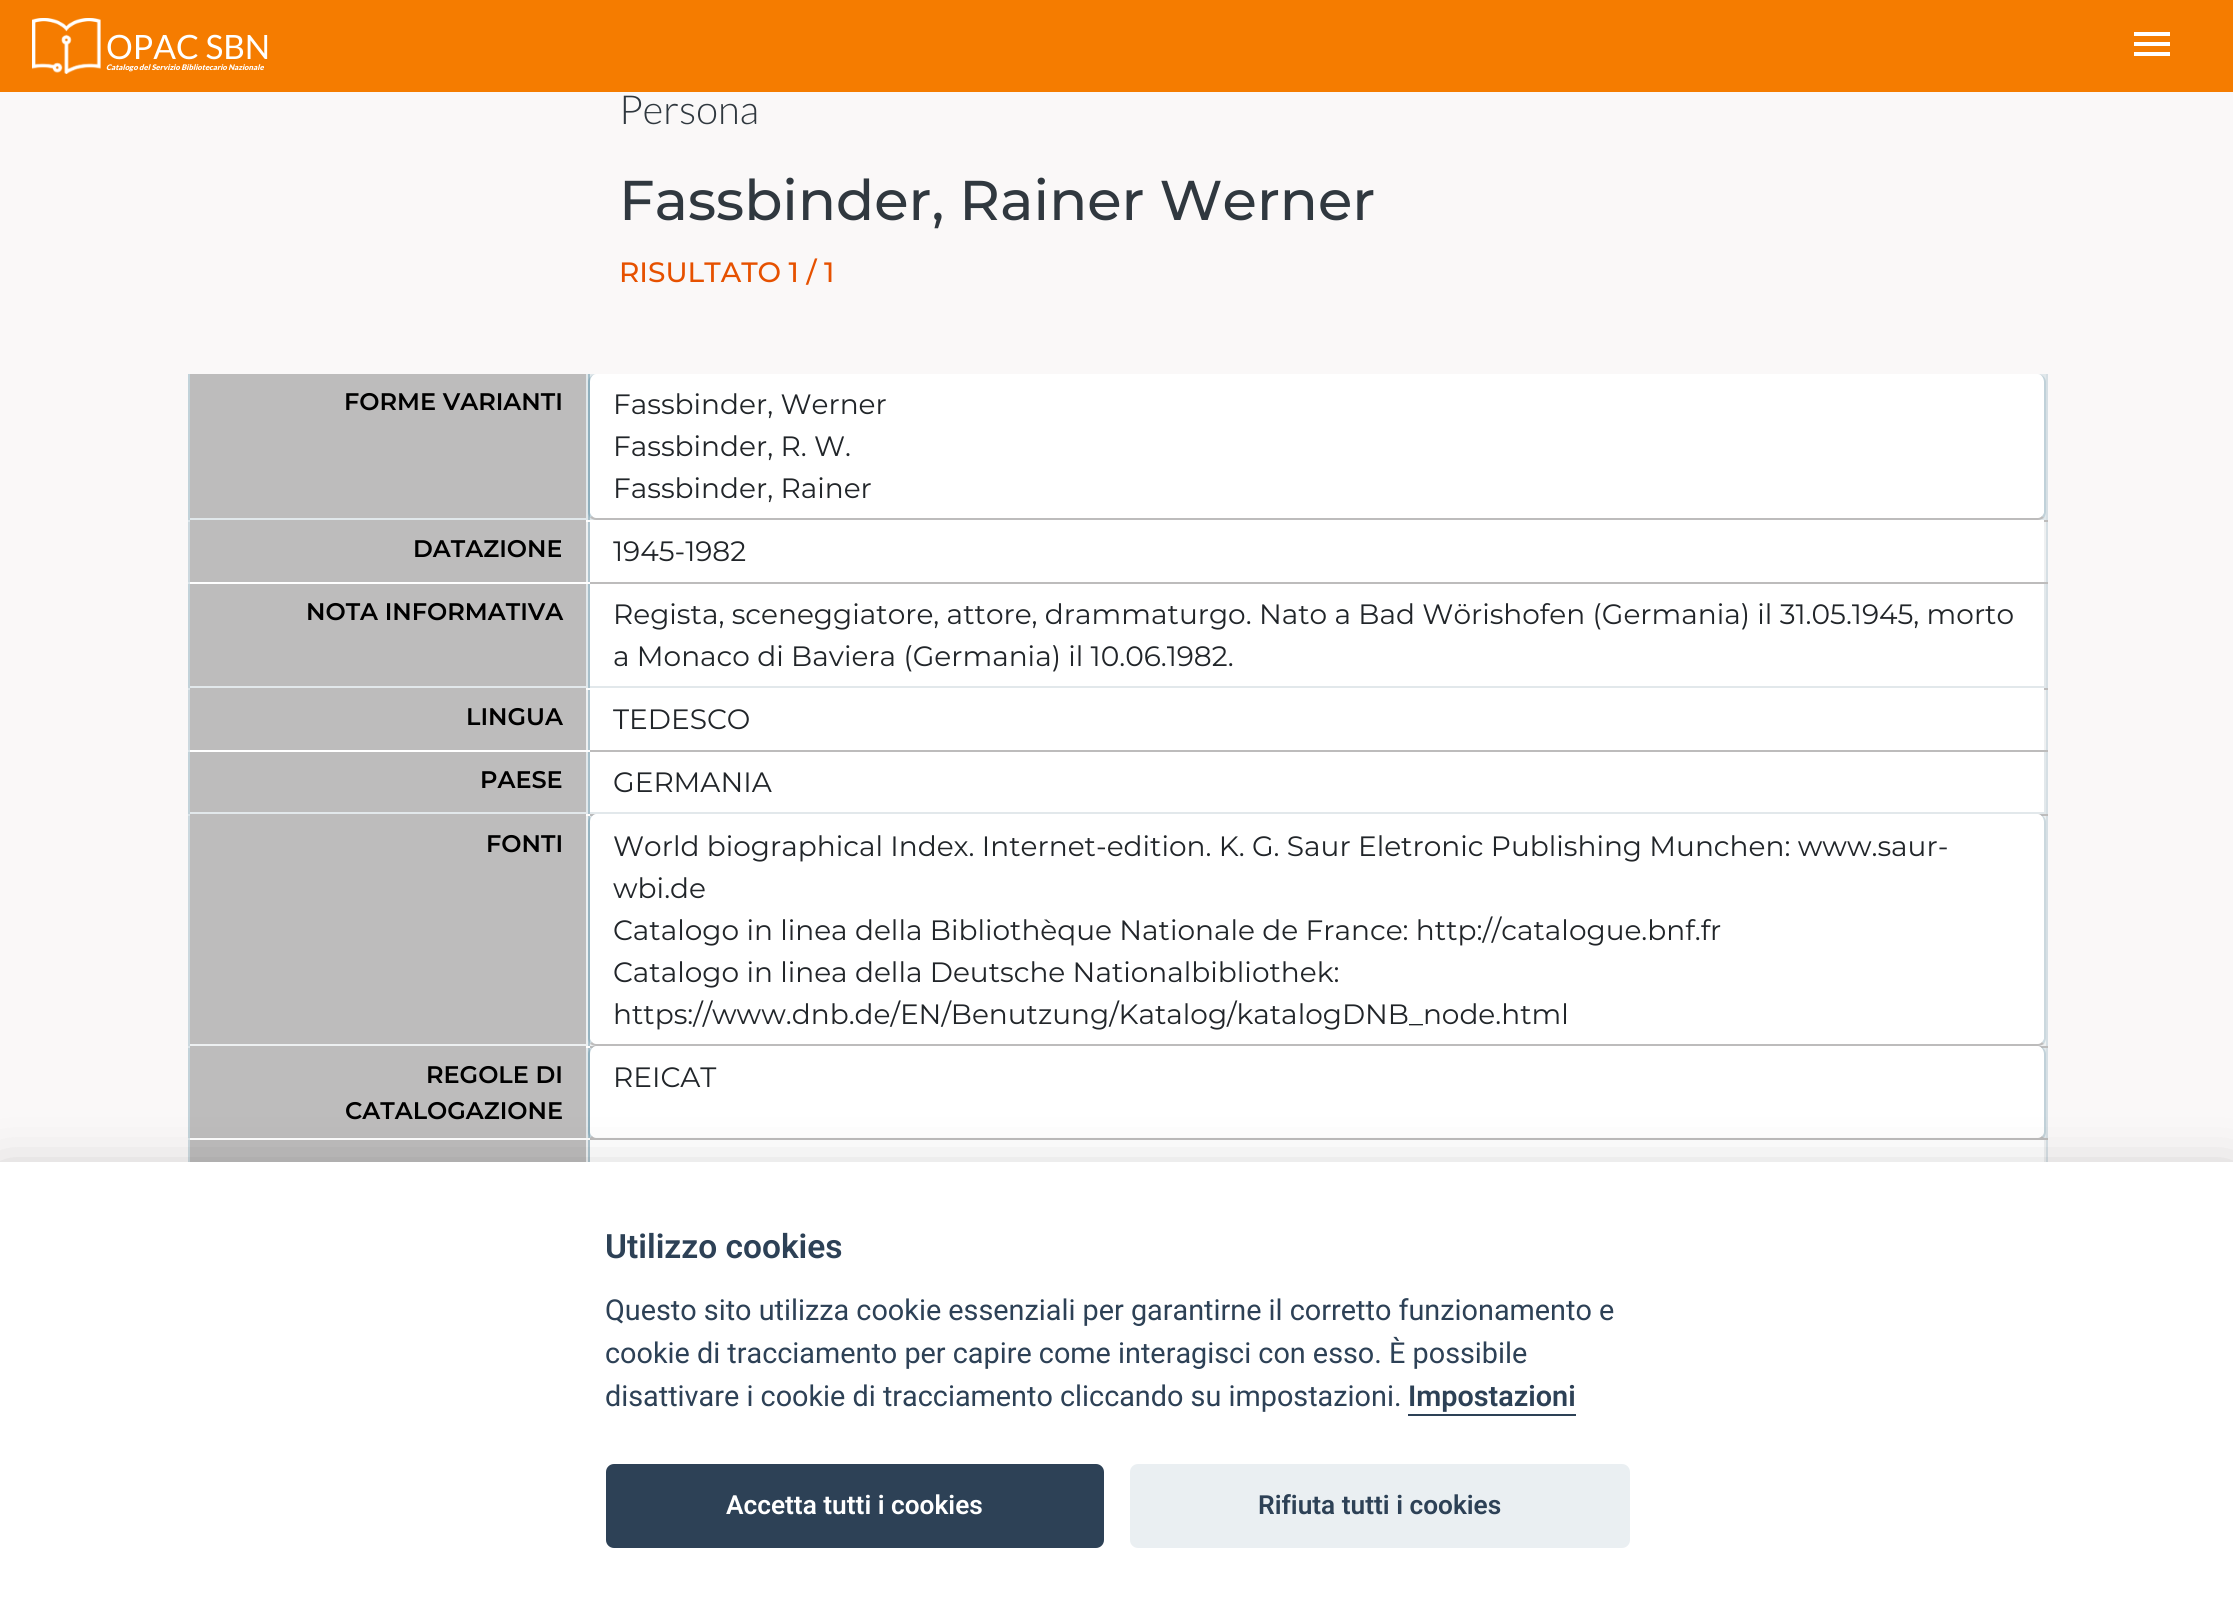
import math
import cairocffi as cairo

surface = cairo.ImageSurface(cairo.FORMAT_RGB24, 2233, 1612)
cr = cairo.Context(surface)
options = cairo.FontOptions()
options.set_hint_metrics(cairo.HINT_METRICS_OFF)
options.set_hint_style(cairo.HINT_STYLE_NONE)
cr.set_font_options(options)
cr.set_miter_limit(4)


def use_color(code):
    cr.set_source_rgb(*(v / 255 for v in bytes.fromhex(code[-6:])))


def round_rect(x, y, w, h, r):
    cr.new_sub_path()
    for i, (u, v) in enumerate([(x + w - r, y + h - r), (x + r, y + h - r), (x + r, y + r), (x + w - r, y + r)]):
        cr.arc(u, v, r, i * math.pi / 2, (i + 1) * math.pi / 2)
    cr.close_path()


def shadow(x, y, w, h, r, blur, alpha):
    cr.push_group_with_content(cairo.CONTENT_ALPHA)
    cr.set_operator(cairo.OPERATOR_SOURCE)
    for i in range(15, -16, -2):
        e = blur * i / 6
        if min(w, h) + 2 * e > 0:
            cr.set_source_rgba(0, 0, 0, alpha * math.erfc((i - 1) / 8.5) / 2)
            round_rect(x - e, y - e, w + 2 * e, h + 2 * e, max(0, min(r + e + blur * .6, min(w, h) / 2 + e)))
            cr.fill()
    cr.mask(cr.pop_group())


def picture(path, x, y, w, h):
    cr.save()
    cr.set_source_surface(cairo.ImageSurface.create_from_png(path), x, y)
    cr.rectangle(x, y, w, h)
    cr.fill()
    cr.restore()


use_color("#faf8f8")
cr.paint()
use_color("#d6dfe4")
cr.rectangle(2046, 374, 2, 788)
cr.fill()
use_color("#f57c00")
cr.rectangle(0, 0, 2233, 92)
cr.fill()
picture("img1.png", 32, 18, 69, 56)
cr.select_font_face("Lato")
cr.set_font_size(33.5)
use_color("#ffffff")
cr.move_to(106, 59)
cr.show_text("OPAC SBN")
cr.select_font_face("Lato Black", cairo.FONT_SLANT_ITALIC)
cr.set_font_size(7.7)
cr.move_to(106, 70)
cr.show_text("Catalogo del Servizio Bibliotecario Nazionale")
cr.new_path()
cr.move_to(2134, 32)
cr.line_to(2170, 32)
cr.line_to(2170, 36)
cr.line_to(2134, 36)
cr.close_path()
cr.move_to(2134, 46)
cr.line_to(2134, 42)
cr.line_to(2170, 42)
cr.line_to(2170, 46)
cr.close_path()
cr.move_to(2134, 56)
cr.line_to(2134, 52)
cr.line_to(2170, 52)
cr.line_to(2170, 56)
cr.close_path()
cr.fill()
cr.select_font_face("Lato Light")
cr.set_font_size(40)
use_color("#30383f")
cr.move_to(619, 124)
cr.show_text("Persona")
cr.select_font_face("Montserrat Medium")
cr.set_font_size(56)
cr.move_to(619, 220)
cr.show_text("Fassbinder, Rainer Werner")
cr.set_font_size(28)
use_color("#e65100")
cr.move_to(619, 282)
cr.show_text("RISULTATO 1 / 1")
use_color("#e1e8eb")
cr.rectangle(190, 374, 1856, 146)
cr.fill()
use_color("#c1d2d9")
cr.rectangle(188, 374, 2, 146)
cr.fill()
use_color("#a6bfca")
cr.rectangle(588, 374, 2, 146)
cr.fill()
use_color("#eef0f1")
cr.rectangle(586, 522, 1460, 60)
cr.fill()
use_color("#afc4ce")
cr.rectangle(588, 520, 2, 64)
cr.fill()
use_color("#ffffff")
cr.rectangle(586, 520, 4, 2)
cr.fill()
use_color("#ccd8de")
cr.rectangle(188, 520, 2, 64)
cr.fill()
use_color("#dbe5ea")
cr.rectangle(188, 520, 2, 2)
cr.fill()
use_color("#bdbcbc")
cr.rectangle(190, 374, 396, 144)
cr.fill()
cr.select_font_face("Montserrat SemiBold")
cr.set_font_size(24)
use_color("#000000")
cr.move_to(344, 410)
cr.show_text("FORME VARIANTI")
use_color("#bdbcbc")
cr.rectangle(2044, 520, 4, 2)
cr.fill()
use_color("#ffffff")
cr.new_path()
cr.move_to(596, 374)
cr.line_to(2038, 374)
cr.curve_to(2041, 374, 2044, 378, 2044, 382)
cr.line_to(2044, 512)
cr.curve_to(2044, 515, 2041, 518, 2038, 518)
cr.line_to(596, 518)
cr.curve_to(593, 518, 590, 515, 590, 512)
cr.line_to(590, 382)
cr.curve_to(590, 378, 593, 374, 596, 374)
cr.close_path()
cr.fill()
cr.set_source_rgba(0.051, 0.325, 0.447, 0.15)
cr.new_path()
cr.move_to(2046, 382)
cr.curve_to(2046, 378, 2042, 374, 2038, 374)
cr.curve_to(2042, 374, 2044, 379, 2044, 382)
cr.line_to(2044, 513)
cr.line_to(2042, 516)
cr.line_to(2044, 518)
cr.curve_to(2045, 516, 2046, 514, 2046, 512)
cr.close_path()
cr.fill()
use_color("#bdbcbc")
cr.new_path()
cr.move_to(592, 516)
cr.curve_to(593, 517, 594, 518, 596, 518)
cr.line_to(2038, 518)
cr.curve_to(2040, 518, 2041, 517, 2042, 516)
cr.line_to(2044, 518)
cr.curve_to(2042, 519, 2040, 520, 2038, 520)
cr.line_to(596, 520)
cr.curve_to(594, 520, 592, 519, 590, 518)
cr.close_path()
cr.fill()
cr.set_source_rgba(0.051, 0.325, 0.447, 0.15)
cr.new_path()
cr.move_to(596, 374)
cr.curve_to(592, 374, 588, 378, 588, 382)
cr.line_to(588, 512)
cr.curve_to(588, 514, 589, 516, 590, 518)
cr.line_to(592, 516)
cr.line_to(590, 513)
cr.line_to(590, 382)
cr.curve_to(590, 379, 592, 374, 596, 374)
cr.close_path()
cr.fill()
cr.select_font_face("Montserrat")
cr.set_font_size(28)
use_color("#212529")
cr.move_to(613, 414)
cr.show_text("Fassbinder, Werner")
cr.move_to(613, 456)
cr.show_text("Fassbinder, R. W.")
cr.move_to(613, 498)
cr.show_text("Fassbinder, Rainer")
use_color("#bdbcbc")
cr.rectangle(588, 582, 1460, 2)
cr.fill()
use_color("#ffffff")
cr.rectangle(188, 582, 402, 2)
cr.fill()
use_color("#dbe5ea")
cr.rectangle(188, 582, 2, 2)
cr.fill()
use_color("#bdbcbc")
cr.rectangle(190, 520, 396, 62)
cr.fill()
cr.select_font_face("Montserrat SemiBold")
cr.set_font_size(24)
use_color("#000000")
cr.move_to(413, 557)
cr.show_text("DATAZIONE")
use_color("#ffffff")
cr.rectangle(590, 520, 1454, 62)
cr.fill()
cr.select_font_face("Montserrat")
cr.set_font_size(28)
use_color("#212529")
cr.move_to(613, 561)
cr.show_text("1945-1982")
use_color("#e2e8eb")
cr.rectangle(190, 584, 1856, 104)
cr.fill()
use_color("#c2d2d9")
cr.rectangle(188, 584, 2, 104)
cr.fill()
use_color("#a7bfca")
cr.rectangle(588, 584, 2, 104)
cr.fill()
use_color("#eef0f1")
cr.rectangle(586, 690, 1460, 60)
cr.fill()
use_color("#afc4ce")
cr.rectangle(588, 688, 2, 64)
cr.fill()
use_color("#ffffff")
cr.rectangle(586, 688, 4, 2)
cr.fill()
use_color("#ccd8de")
cr.rectangle(188, 688, 2, 64)
cr.fill()
use_color("#dbe5ea")
cr.rectangle(188, 688, 2, 2)
cr.fill()
use_color("#bdbcbc")
cr.rectangle(190, 584, 396, 102)
cr.fill()
cr.select_font_face("Montserrat SemiBold")
cr.set_font_size(24)
use_color("#000000")
cr.move_to(306, 620)
cr.show_text("NOTA INFORMATIVA")
use_color("#bdbcbc")
cr.rectangle(2044, 688, 4, 2)
cr.fill()
use_color("#ffffff")
cr.rectangle(590, 584, 1454, 102)
cr.fill()
cr.select_font_face("Montserrat")
cr.set_font_size(28)
use_color("#212529")
cr.move_to(613, 624)
cr.show_text("Regista, sceneggiatore, attore, drammaturgo. Nato a Bad Wörishofen (Germania) il 31.05.1945, morto")
cr.move_to(613, 666)
cr.show_text("a Monaco di Baviera (Germania) il 10.06.1982.")
use_color("#bdbcbc")
cr.rectangle(588, 750, 1460, 2)
cr.fill()
use_color("#ffffff")
cr.rectangle(188, 750, 402, 2)
cr.fill()
use_color("#dbe5ea")
cr.rectangle(188, 750, 2, 2)
cr.fill()
use_color("#bdbcbc")
cr.rectangle(190, 688, 396, 62)
cr.fill()
cr.select_font_face("Montserrat SemiBold")
cr.set_font_size(24)
use_color("#000000")
cr.move_to(466, 725)
cr.show_text("LINGUA")
use_color("#ffffff")
cr.rectangle(590, 688, 1454, 62)
cr.fill()
cr.select_font_face("Montserrat")
cr.set_font_size(28)
use_color("#212529")
cr.move_to(613, 729)
cr.show_text("TEDESCO")
use_color("#e2e8eb")
cr.rectangle(190, 752, 1856, 62)
cr.fill()
use_color("#c2d2d9")
cr.rectangle(188, 752, 2, 62)
cr.fill()
use_color("#a7bfca")
cr.rectangle(588, 752, 2, 62)
cr.fill()
use_color("#edf0f1")
cr.rectangle(190, 816, 1856, 230)
cr.fill()
use_color("#aec4ce")
cr.rectangle(588, 814, 2, 232)
cr.fill()
use_color("#bdbcbc")
cr.rectangle(588, 814, 1460, 2)
cr.fill()
use_color("#ffffff")
cr.rectangle(586, 814, 4, 2)
cr.fill()
use_color("#cbd8de")
cr.rectangle(188, 814, 2, 232)
cr.fill()
use_color("#dbe5ea")
cr.rectangle(188, 814, 2, 2)
cr.fill()
use_color("#bdbcbc")
cr.rectangle(190, 752, 396, 60)
cr.fill()
cr.select_font_face("Montserrat SemiBold")
cr.set_font_size(24)
use_color("#000000")
cr.move_to(480, 788)
cr.show_text("PAESE")
use_color("#ffffff")
cr.rectangle(590, 752, 1454, 60)
cr.fill()
cr.select_font_face("Montserrat")
cr.set_font_size(28)
use_color("#212529")
cr.move_to(613, 792)
cr.show_text("GERMANIA")
use_color("#e2e8eb")
cr.rectangle(586, 1048, 1460, 90)
cr.fill()
use_color("#a7bfca")
cr.rectangle(588, 1046, 2, 94)
cr.fill()
use_color("#bdbcbc")
cr.rectangle(588, 1046, 1460, 2)
cr.fill()
use_color("#ffffff")
cr.rectangle(586, 1046, 4, 2)
cr.fill()
use_color("#c2d2d9")
cr.rectangle(188, 1046, 2, 94)
cr.fill()
use_color("#dbe5ea")
cr.rectangle(188, 1046, 2, 2)
cr.fill()
use_color("#bdbcbc")
cr.rectangle(190, 814, 396, 230)
cr.fill()
cr.select_font_face("Montserrat SemiBold")
cr.set_font_size(24)
use_color("#000000")
cr.move_to(486, 852)
cr.show_text("FONTI")
use_color("#ffffff")
cr.new_path()
cr.move_to(596, 814)
cr.line_to(2038, 814)
cr.curve_to(2041, 814, 2044, 818, 2044, 822)
cr.line_to(2044, 1038)
cr.curve_to(2044, 1041, 2041, 1044, 2038, 1044)
cr.line_to(596, 1044)
cr.curve_to(593, 1044, 590, 1041, 590, 1038)
cr.line_to(590, 822)
cr.curve_to(590, 818, 593, 814, 596, 814)
cr.close_path()
cr.fill()
cr.set_source_rgba(0.051, 0.325, 0.447, 0.15)
cr.new_path()
cr.move_to(2046, 822)
cr.curve_to(2046, 818, 2042, 814, 2038, 814)
cr.curve_to(2042, 814, 2044, 819, 2044, 822)
cr.line_to(2044, 1039)
cr.line_to(2042, 1042)
cr.line_to(2044, 1044)
cr.curve_to(2045, 1042, 2046, 1040, 2046, 1038)
cr.close_path()
cr.fill()
use_color("#bdbcbc")
cr.new_path()
cr.move_to(592, 1042)
cr.curve_to(593, 1043, 594, 1044, 596, 1044)
cr.line_to(2038, 1044)
cr.curve_to(2040, 1044, 2041, 1043, 2042, 1042)
cr.line_to(2044, 1044)
cr.curve_to(2042, 1045, 2040, 1046, 2038, 1046)
cr.line_to(596, 1046)
cr.curve_to(594, 1046, 592, 1045, 590, 1044)
cr.close_path()
cr.fill()
cr.set_source_rgba(0.051, 0.325, 0.447, 0.15)
cr.new_path()
cr.move_to(596, 814)
cr.curve_to(592, 814, 588, 818, 588, 822)
cr.line_to(588, 1038)
cr.curve_to(588, 1040, 589, 1042, 590, 1044)
cr.line_to(592, 1042)
cr.line_to(590, 1039)
cr.line_to(590, 822)
cr.curve_to(590, 819, 592, 814, 596, 814)
cr.close_path()
cr.fill()
cr.select_font_face("Montserrat")
cr.set_font_size(28)
use_color("#212529")
cr.move_to(613, 856)
cr.show_text("World biographical Index. Internet-edition. K. G. Saur Eletronic Publishing Munchen: www.saur-")
cr.move_to(613, 898)
cr.show_text("wbi.de")
cr.move_to(613, 940)
cr.show_text("Catalogo in linea della Bibliothèque Nationale de France: http://catalogue.bnf.fr")
cr.move_to(613, 982)
cr.show_text("Catalogo in linea della Deutsche Nationalbibliothek:")
cr.move_to(613, 1024)
cr.show_text("https://www.dnb.de/EN/Benutzung/Katalog/katalogDNB_node.html")
use_color("#bdbcbc")
cr.rectangle(588, 1138, 1460, 2)
cr.fill()
use_color("#ffffff")
cr.rectangle(188, 1138, 402, 2)
cr.fill()
use_color("#dbe5ea")
cr.rectangle(188, 1138, 2, 2)
cr.fill()
use_color("#bdbcbc")
cr.rectangle(190, 1046, 396, 92)
cr.fill()
cr.select_font_face("Montserrat SemiBold")
cr.set_font_size(24)
use_color("#000000")
cr.move_to(426, 1083)
cr.show_text("REGOLE DI")
cr.move_to(345, 1119)
cr.show_text("CATALOGAZIONE")
use_color("#ffffff")
cr.new_path()
cr.move_to(596, 1046)
cr.line_to(2038, 1046)
cr.curve_to(2041, 1046, 2044, 1050, 2044, 1054)
cr.line_to(2044, 1132)
cr.curve_to(2044, 1135, 2041, 1138, 2038, 1138)
cr.line_to(596, 1138)
cr.curve_to(593, 1138, 590, 1135, 590, 1132)
cr.line_to(590, 1054)
cr.curve_to(590, 1050, 593, 1046, 596, 1046)
cr.close_path()
cr.fill()
cr.set_source_rgba(0.051, 0.325, 0.447, 0.15)
cr.new_path()
cr.move_to(2046, 1054)
cr.curve_to(2046, 1050, 2042, 1046, 2038, 1046)
cr.curve_to(2041, 1046, 2044, 1050, 2044, 1054)
cr.line_to(2044, 1132)
cr.curve_to(2044, 1134, 2043, 1135, 2042, 1136)
cr.line_to(2044, 1138)
cr.curve_to(2045, 1136, 2046, 1134, 2046, 1132)
cr.close_path()
cr.fill()
use_color("#bdbcbc")
cr.new_path()
cr.move_to(592, 1136)
cr.curve_to(593, 1137, 594, 1138, 596, 1138)
cr.line_to(2038, 1138)
cr.curve_to(2040, 1138, 2041, 1137, 2042, 1136)
cr.line_to(2044, 1138)
cr.curve_to(2042, 1139, 2040, 1140, 2038, 1140)
cr.line_to(596, 1140)
cr.curve_to(594, 1140, 592, 1139, 590, 1138)
cr.close_path()
cr.fill()
cr.set_source_rgba(0.051, 0.325, 0.447, 0.15)
cr.new_path()
cr.move_to(596, 1046)
cr.curve_to(592, 1046, 588, 1050, 588, 1054)
cr.line_to(588, 1132)
cr.curve_to(588, 1134, 589, 1136, 590, 1138)
cr.line_to(592, 1136)
cr.curve_to(591, 1135, 590, 1134, 590, 1132)
cr.line_to(590, 1054)
cr.curve_to(590, 1050, 593, 1046, 596, 1046)
cr.close_path()
cr.fill()
cr.select_font_face("Montserrat")
cr.set_font_size(28)
use_color("#212529")
cr.move_to(613, 1087)
cr.show_text("REICAT")
use_color("#eef0f1")
cr.rectangle(586, 1140, 1460, 22)
cr.fill()
use_color("#ccd8de")
cr.rectangle(188, 1140, 2, 22)
cr.fill()
use_color("#afc4ce")
cr.rectangle(588, 1140, 2, 22)
cr.fill()
use_color("#bdbcbc")
cr.rectangle(190, 1140, 396, 22)
cr.fill()
use_color("#ffffff")
cr.rectangle(590, 1140, 1454, 22)
cr.fill()
use_color("#020203")
shadow(0, 1182, 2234, 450, 0, 30, 0.28)
use_color("#ffffff")
cr.rectangle(0, 1162, 2233, 450)
cr.fill()
cr.select_font_face("Roboto SemiBold")
cr.set_font_size(33.5)
use_color("#2d4156")
cr.move_to(605, 1258)
cr.show_text("Utilizzo cookies")
cr.select_font_face("Roboto")
cr.set_font_size(28.8)
cr.move_to(605, 1320)
cr.show_text("Questo sito utilizza cookie essenziali per garantirne il corretto funzionamento e")
cr.move_to(605, 1363)
cr.show_text("cookie di tracciamento per capire come interagisci con esso. È possibile")
cr.move_to(605, 1406)
cr.show_text("disattivare i cookie di tracciamento cliccando su impostazioni.")
cr.select_font_face("Roboto SemiBold")
cr.move_to(1408, 1406)
cr.show_text("Impostazioni")
cr.rectangle(1408, 1414, 168, 2)
cr.fill()
round_rect(606, 1464, 498, 84, 8)
cr.fill()
cr.set_font_size(26.25)
use_color("#ffffff")
cr.move_to(726, 1514)
cr.show_text("Accetta tutti i cookies")
use_color("#eaeff2")
round_rect(1130, 1464, 500, 84, 8)
cr.fill()
use_color("#2d4156")
cr.move_to(1258, 1514)
cr.show_text("Rifiuta tutti i cookies")
surface.write_to_png("result.png")
